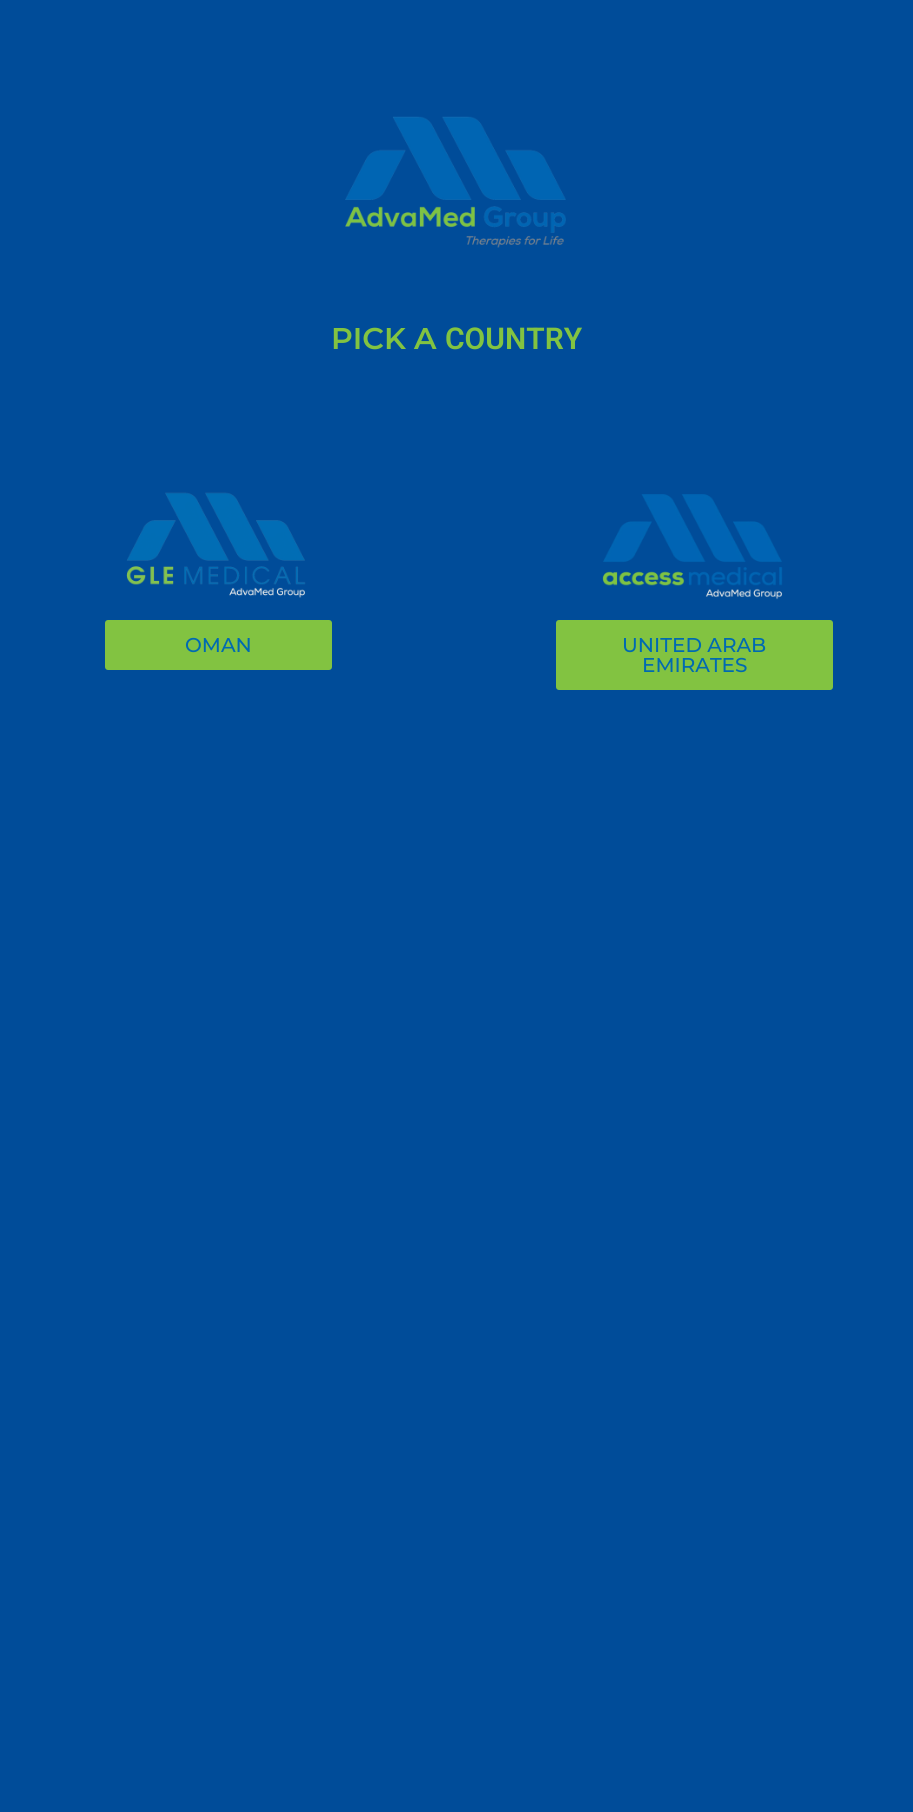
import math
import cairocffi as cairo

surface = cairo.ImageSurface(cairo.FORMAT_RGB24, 913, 1812)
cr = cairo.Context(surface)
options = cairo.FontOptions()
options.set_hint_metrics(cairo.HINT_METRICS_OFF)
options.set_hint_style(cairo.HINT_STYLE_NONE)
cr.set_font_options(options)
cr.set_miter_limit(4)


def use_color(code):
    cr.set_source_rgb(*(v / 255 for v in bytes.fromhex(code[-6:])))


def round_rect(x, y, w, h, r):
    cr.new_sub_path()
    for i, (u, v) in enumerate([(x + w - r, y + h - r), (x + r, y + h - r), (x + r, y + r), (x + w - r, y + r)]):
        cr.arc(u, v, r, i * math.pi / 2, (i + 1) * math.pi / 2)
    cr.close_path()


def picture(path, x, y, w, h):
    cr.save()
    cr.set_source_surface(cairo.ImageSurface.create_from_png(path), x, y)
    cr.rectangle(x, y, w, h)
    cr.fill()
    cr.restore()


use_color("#004c99")
cr.paint()
picture("img1.png", 345, 116, 221, 132)
cr.select_font_face("Montserrat SemiBold")
cr.set_font_size(30)
use_color("#82c341")
cr.move_to(331, 349)
cr.show_text("PICK A")
cr.select_font_face("Roboto SemiBold")
cr.move_to(445, 349)
cr.show_text("COUNTRY")
picture("img2.png", 126, 492, 180, 106)
round_rect(105, 620, 227, 50, 3)
cr.fill()
cr.select_font_face("Montserrat Medium")
cr.set_font_size(20)
use_color("#006ab1")
cr.move_to(185, 652)
cr.show_text("OMAN")
picture("img3.png", 602, 494, 181, 106)
use_color("#82c341")
round_rect(556, 620, 277, 70, 3)
cr.fill()
use_color("#006ab1")
cr.move_to(622, 652)
cr.show_text("UNITED ARAB")
cr.move_to(642, 672)
cr.show_text("EMIRATES")
surface.write_to_png("result.png")
